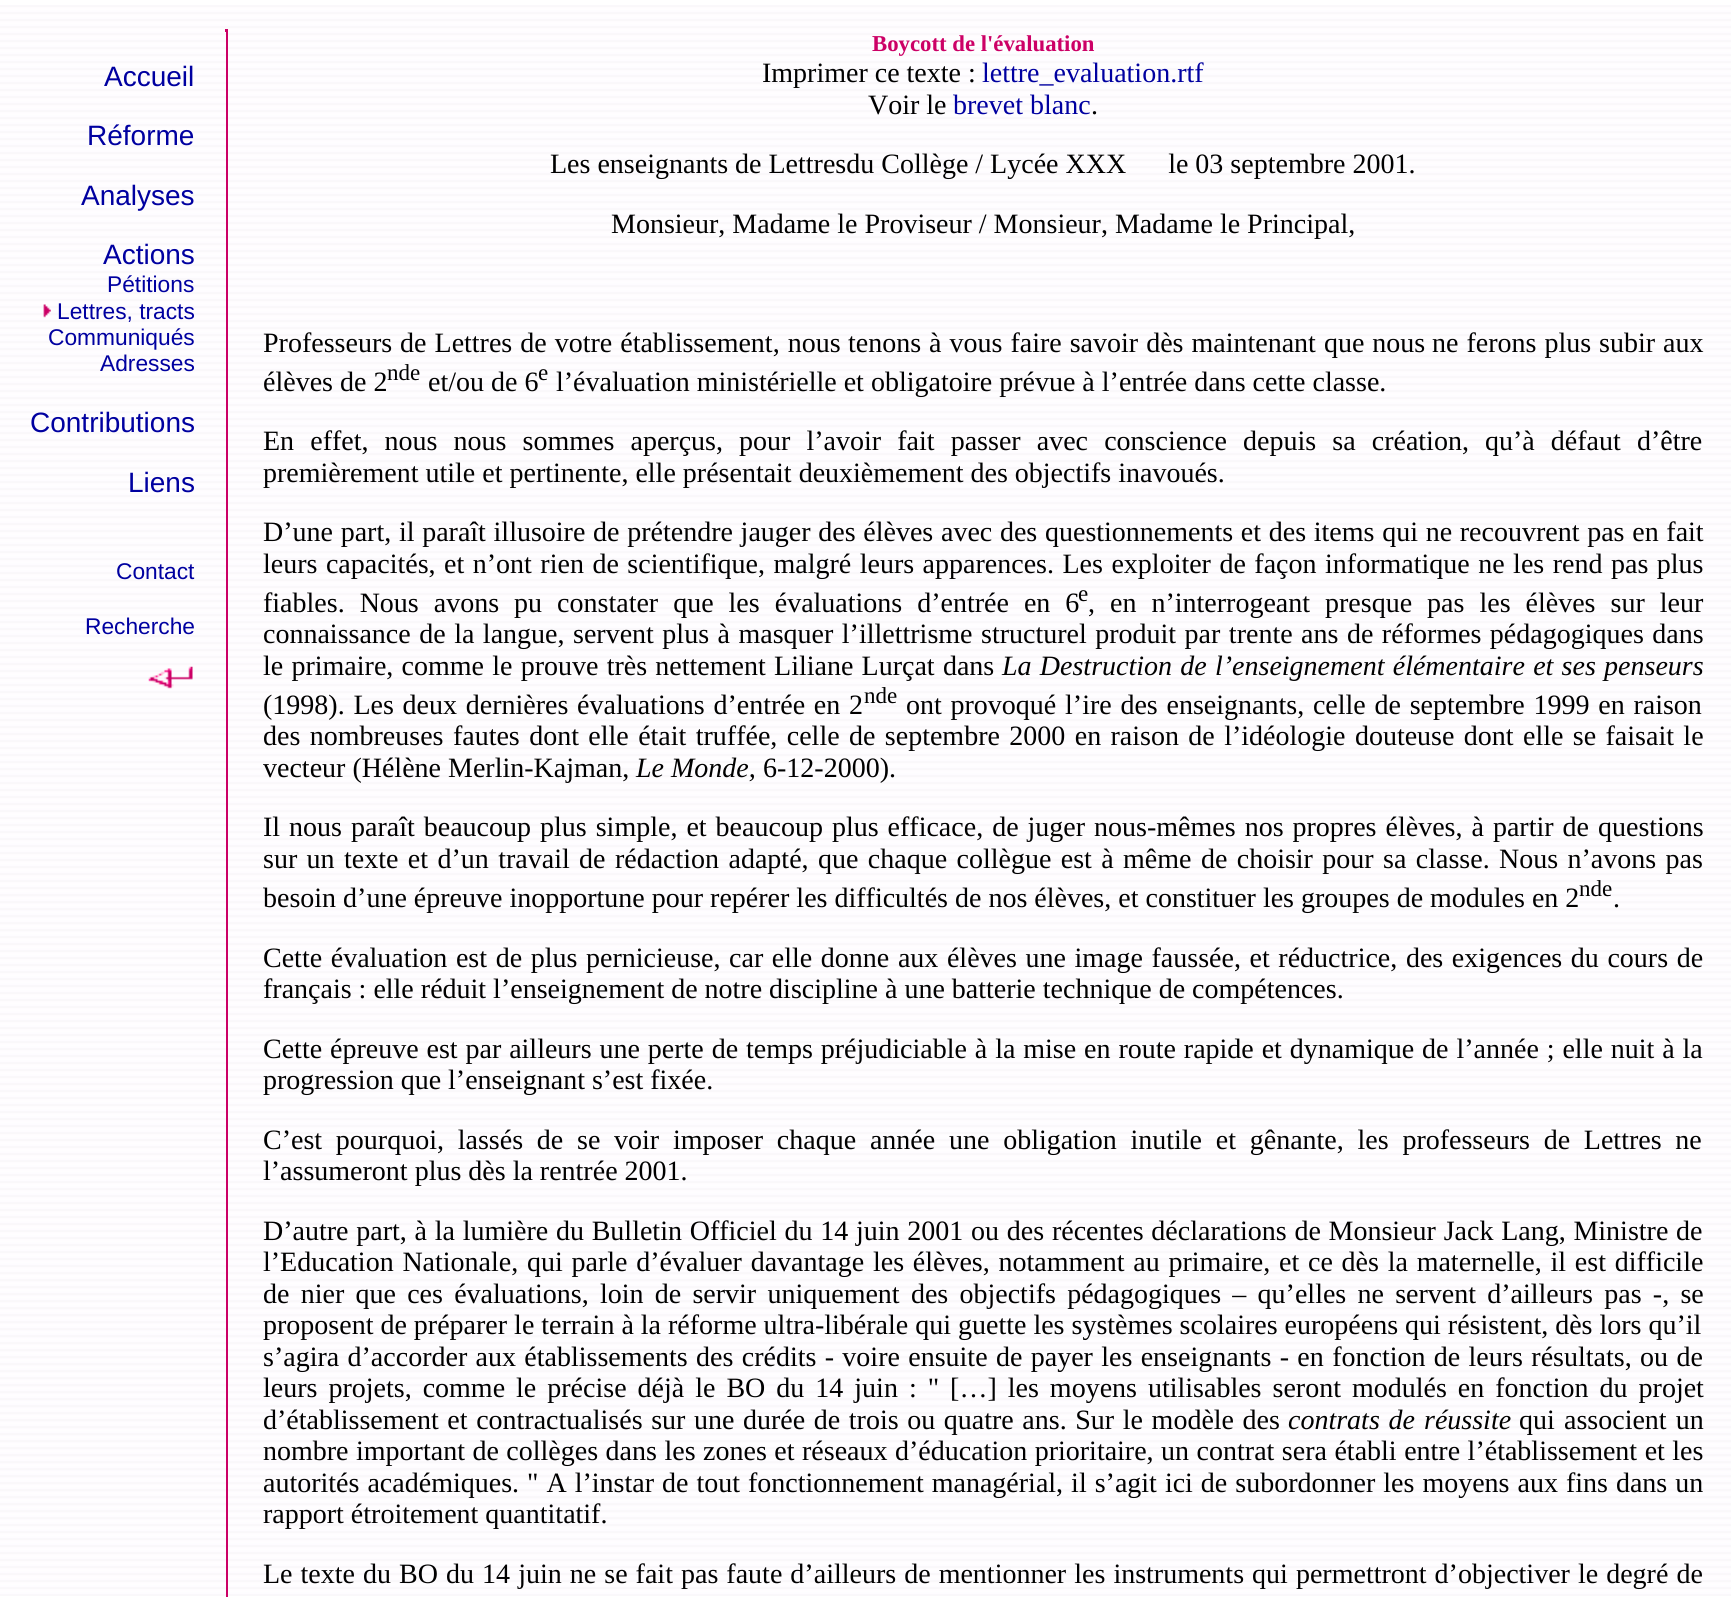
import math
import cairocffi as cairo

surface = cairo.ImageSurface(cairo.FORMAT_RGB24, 1731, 1597)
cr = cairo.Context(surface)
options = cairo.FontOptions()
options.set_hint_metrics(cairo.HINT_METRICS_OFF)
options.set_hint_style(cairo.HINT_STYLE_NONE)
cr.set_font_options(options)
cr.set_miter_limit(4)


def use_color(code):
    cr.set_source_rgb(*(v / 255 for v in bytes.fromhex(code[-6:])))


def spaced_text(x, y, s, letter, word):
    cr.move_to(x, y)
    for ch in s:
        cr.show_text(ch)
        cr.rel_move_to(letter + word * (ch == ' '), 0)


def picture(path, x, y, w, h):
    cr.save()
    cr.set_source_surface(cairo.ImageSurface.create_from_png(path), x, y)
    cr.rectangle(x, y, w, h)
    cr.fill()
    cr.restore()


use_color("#ffffff")
cr.paint()
picture("img1.png", 0, 5, 1731, 1591)
cr.select_font_face("Liberation Sans")
cr.set_font_size(28)
use_color("#0000a0")
cr.move_to(104, 86)
cr.show_text("Accueil")
cr.move_to(87, 145)
cr.show_text("Réforme")
cr.move_to(81, 205)
cr.show_text("Analyses")
cr.move_to(103, 264)
cr.show_text("Actions")
cr.set_font_size(22.75)
cr.move_to(107, 292)
cr.show_text("Pétitions")
picture("img2.png", 43, 304, 8, 14)
cr.move_to(57, 319)
cr.show_text("Lettres, tracts")
cr.move_to(48, 345)
cr.show_text("Communiqués")
cr.move_to(100, 371)
cr.show_text("Adresses")
cr.set_font_size(28)
cr.move_to(30, 432)
cr.show_text("Contributions")
cr.move_to(128, 492)
cr.show_text("Liens")
cr.set_font_size(22.75)
cr.move_to(116, 579)
cr.show_text("Contact")
cr.move_to(85, 634)
cr.show_text("Recherche")
picture("img3.png", 148, 666, 45, 23)
use_color("#cc0066")
cr.rectangle(226, 30, 2, 1567)
cr.fill()
cr.rectangle(225, 29, 3, 3)
cr.fill()
cr.select_font_face("Liberation Serif", cairo.FONT_SLANT_NORMAL, cairo.FONT_WEIGHT_BOLD)
cr.move_to(872, 51)
cr.show_text("Boycott de l'évaluation")
cr.select_font_face("Liberation Serif")
cr.set_font_size(28)
use_color("#000000")
cr.move_to(762, 82)
cr.show_text("Imprimer ce texte :")
use_color("#0000a0")
cr.move_to(982, 82)
cr.show_text("lettre_evaluation.rtf")
use_color("#000000")
cr.move_to(868, 114)
cr.show_text("Voir le")
use_color("#0000a0")
cr.move_to(953, 114)
cr.show_text("brevet blanc")
use_color("#000000")
cr.move_to(1091, 114)
cr.show_text(".")
cr.move_to(550, 173)
cr.show_text("Les enseignants de Lettresdu Collège / Lycée XXX      le 03 septembre 2001.")
cr.move_to(611, 233)
cr.show_text("Monsieur, Madame le Proviseur / Monsieur, Madame le Principal,")
spaced_text(263, 352, "Professeurs de Lettres de votre établissement, nous", 0, 1)
spaced_text(848, 352, "tenons à vous faire savoir dès maintenant que nous", 0, 1)
spaced_text(1432, 352, "ne ferons plus subir aux", 0, 1)
cr.move_to(263, 391)
cr.show_text("élèves de 2")
cr.set_font_size(23)
cr.move_to(387, 380)
cr.show_text("nde")
cr.set_font_size(28)
cr.move_to(428, 391)
cr.show_text("et/ou de 6")
cr.set_font_size(23)
cr.move_to(538, 380)
cr.show_text("e")
cr.set_font_size(28)
cr.move_to(556, 391)
cr.show_text("l’évaluation ministérielle et obligatoire prévue à l’entrée dans cette classe.")
spaced_text(263, 450, "En effet, nous nous sommes aperçus, pour l’avoir fait passer avec conscience depuis sa création, qu’à défaut d’être", 0, 9.1)
cr.move_to(263, 482)
cr.show_text("premièrement utile et pertinente, elle présentait deuxièmement des objectifs inavoués.")
spaced_text(263, 541, "D’une part, il paraît illusoire de prétendre jauger des élèves avec des questionnements et des items qui ne recouvrent pas en fait", 0, 0.7)
spaced_text(263, 573, "leurs capacités, et n’ont rien de scientifique, malgré leurs apparences. Les exploiter de façon informatique ne les rend pas plus", 0, 1.5)
spaced_text(263, 612, "fiables. Nous avons pu constater que les évaluations d’entrée en 6", 0, 8)
cr.set_font_size(23)
cr.move_to(1078, 601)
cr.show_text("e")
cr.set_font_size(28)
spaced_text(1088, 612, ", en n’interrogeant presque pas les élèves sur leur", 0, 8)
spaced_text(263, 643, "connaissance de la langue, servent plus à masquer l’illettrisme structurel produit par trente ans de réformes pédagogiques dans", 0, 1.5)
spaced_text(263, 675, "le primaire, comme le prouve très nettement Liliane Lurçat dans", 0, 1.25)
cr.select_font_face("Liberation Serif", cairo.FONT_SLANT_ITALIC)
spaced_text(1002, 675, "La Destruction de l’enseignement élémentaire et ses penseurs", 0, 1.25)
cr.select_font_face("Liberation Serif")
spaced_text(263, 714, "(1998). Les deux dernières évaluations d’entrée en 2", 0, 1.75)
cr.set_font_size(23)
cr.move_to(864, 703)
cr.show_text("nde")
cr.set_font_size(28)
spaced_text(906, 714, "ont provoqué l’ire des enseignants, celle de septembre 1999 en raison", 0, 1.75)
spaced_text(263, 745, "des nombreuses fautes dont elle était truffée, celle de septembre 2000 en raison de l’idéologie douteuse dont elle se faisait le", 0, 2.4)
cr.move_to(263, 777)
cr.show_text("vecteur (Hélène Merlin-Kajman,")
cr.select_font_face("Liberation Serif", cairo.FONT_SLANT_ITALIC)
cr.move_to(636, 777)
cr.show_text("Le Monde,")
cr.select_font_face("Liberation Serif")
cr.move_to(763, 777)
cr.show_text("6-12-2000).")
spaced_text(263, 836, "Il nous paraît beaucoup plus simple, et beaucoup plus efficace, de juger nous-mêmes nos propres élèves, à partir de questions", 0, 2)
spaced_text(263, 868, "sur un texte et d’un travail de rédaction adapté, que chaque collègue est à même de choisir pour sa classe. Nous n’avons pas", 0, 2.4)
cr.move_to(263, 907)
cr.show_text("besoin d’une épreuve inopportune pour repérer les difficultés de nos élèves, et constituer les groupes de modules en 2")
cr.set_font_size(23)
cr.move_to(1579, 896)
cr.show_text("nde")
cr.set_font_size(28)
cr.move_to(1613, 907)
cr.show_text(".")
spaced_text(263, 967, "Cette évaluation est de plus pernicieuse, car elle donne aux élèves une image faussée, et réductrice, des exigences du cours de", 0, 1.6)
cr.move_to(263, 998)
cr.show_text("français : elle réduit l’enseignement de notre discipline à une batterie technique de compétences.")
spaced_text(263, 1058, "Cette épreuve est par ailleurs une perte de temps préjudiciable à la mise en route rapide et dynamique de l’année ; elle nuit à la", 0, 0.9)
cr.move_to(263, 1089)
cr.show_text("progression que l’enseignant s’est fixée.")
spaced_text(263, 1149, "C’est pourquoi, lassés de se voir imposer chaque année une obligation inutile et gênante, les professeurs de Lettres ne", 0, 6.75)
cr.move_to(263, 1180)
cr.show_text("l’assumeront plus dès la rentrée 2001.")
spaced_text(263, 1240, "D’autre part, à la lumière du Bulletin Officiel du 14 juin 2001 ou des récentes déclarations de Monsieur Jack Lang, Ministre de", 0, 0.75)
spaced_text(263, 1271, "l’Education Nationale, qui parle d’évaluer davantage les élèves, notamment au primaire, et ce dès la maternelle, il est difficile", 0, 1.75)
spaced_text(263, 1303, "de nier que ces évaluations, loin de servir uniquement des objectifs pédagogiques – qu’elles ne servent d’ailleurs pas -, se", 0, 4.25)
cr.move_to(263, 1334)
cr.show_text("proposent de préparer le terrain à la réforme ultra-libérale qui guette les systèmes scolaires européens qui résistent, dès lors qu’il")
spaced_text(263, 1366, "s’agira d’accorder aux établissements des crédits - voire ensuite de payer les enseignants - en fonction de leurs résultats, ou de", 0, 1.35)
spaced_text(263, 1397, "leurs projets, comme le précise déjà le BO du 14 juin : \" […] les moyens utilisables seront modulés en fonction du projet", 0, 4)
spaced_text(263, 1429, "d’établissement et contractualisés sur une durée de trois ou quatre ans. Sur le modèle des", 0, 1.6)
cr.select_font_face("Liberation Serif", cairo.FONT_SLANT_ITALIC)
spaced_text(1288, 1429, "contrats de", 0, 1.6)
cr.move_to(1424, 1429)
cr.show_text("réussite")
cr.select_font_face("Liberation Serif")
cr.move_to(1519, 1429)
cr.show_text("qui")
spaced_text(1564, 1429, "associent un", 0, 2)
spaced_text(263, 1460, "nombre important de collèges dans les zones et réseaux d’éducation prioritaire, un contrat sera établi entre l’établissement et les", 0, 0.5)
spaced_text(263, 1492, "autorités académiques. \" A l’instar de tout fonctionnement managérial, il s’agit ici de subordonner les moyens aux fins dans un", 0, 1)
cr.move_to(263, 1523)
cr.show_text("rapport étroitement quantitatif.")
spaced_text(263, 1583, "Le texte du BO du 14 juin ne se fait pas faute d’ailleurs de mentionner les instruments qui permettront d’objectiver le degré de", 0, 1.05)
surface.write_to_png("result.png")
